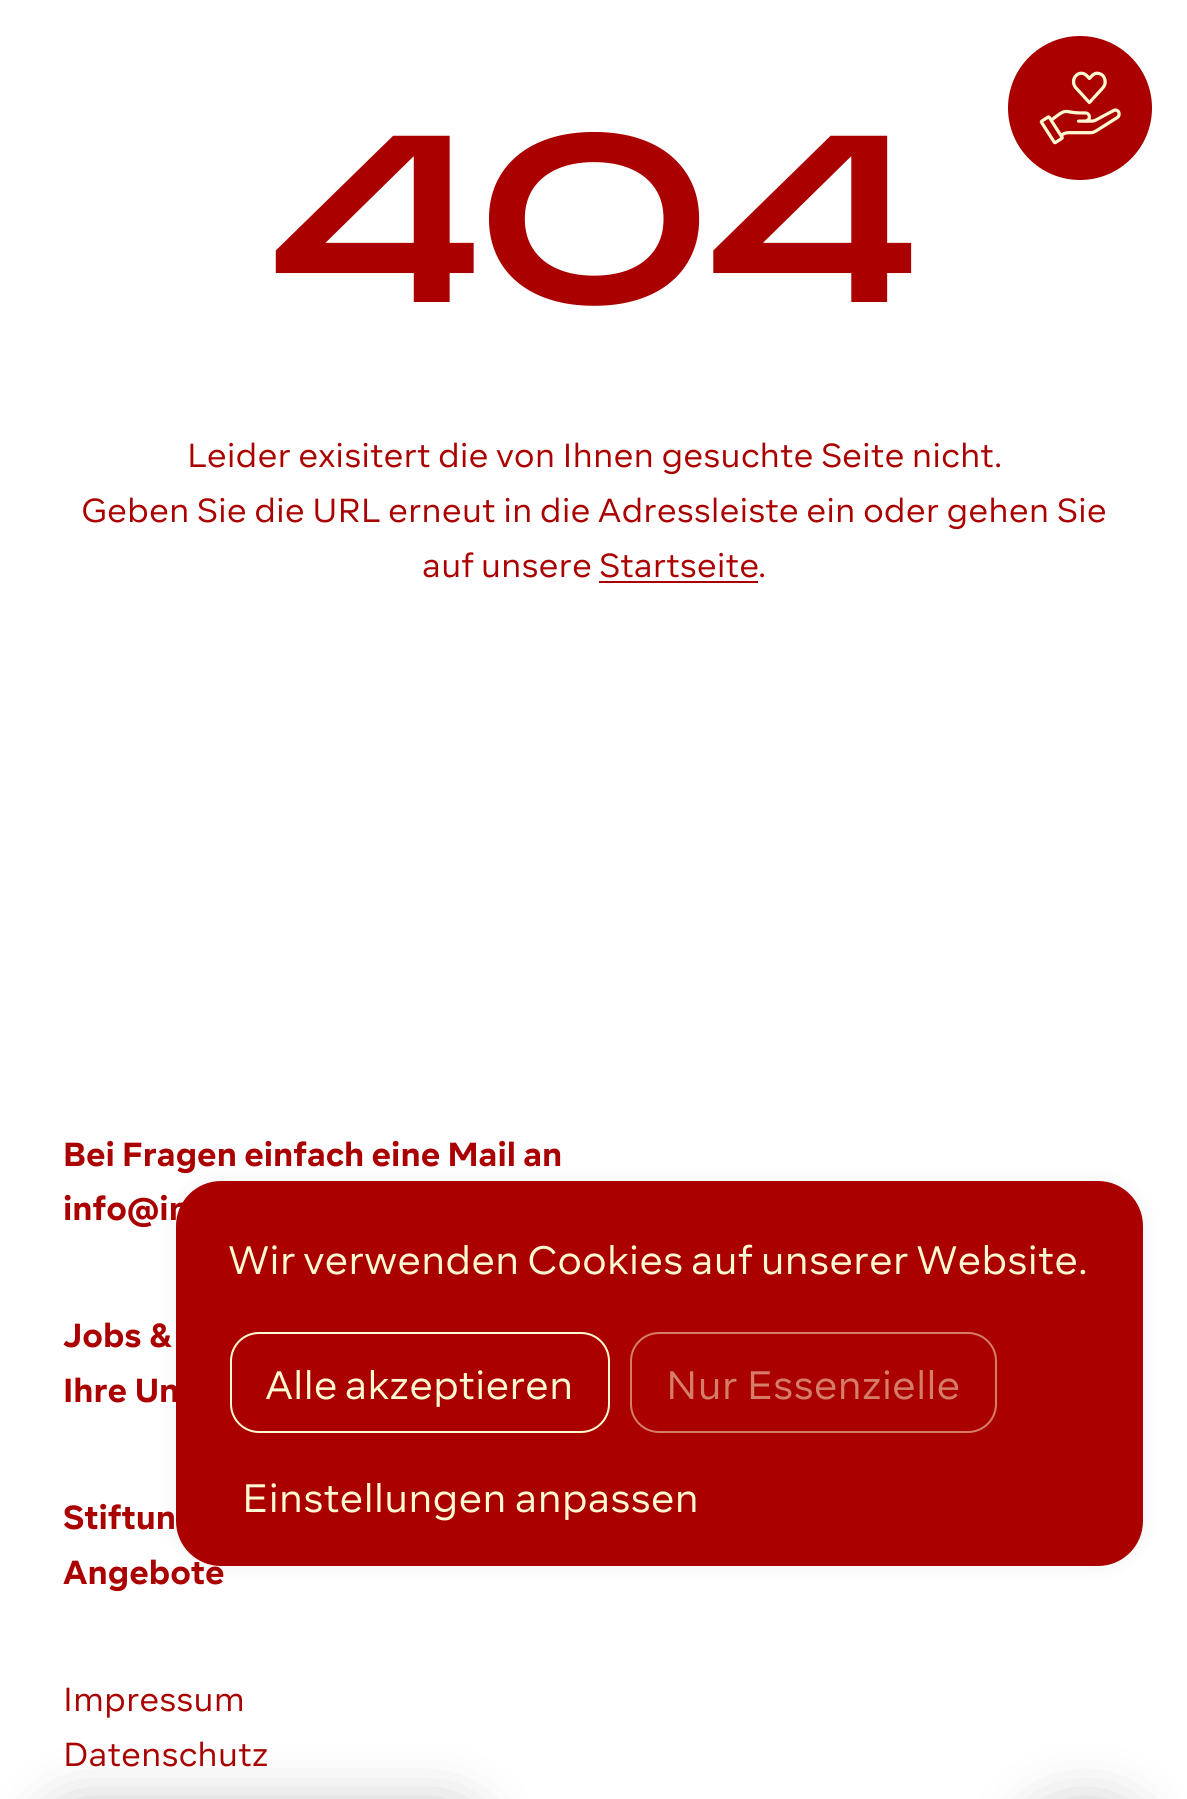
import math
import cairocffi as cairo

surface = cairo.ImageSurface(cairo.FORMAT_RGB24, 1187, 1799)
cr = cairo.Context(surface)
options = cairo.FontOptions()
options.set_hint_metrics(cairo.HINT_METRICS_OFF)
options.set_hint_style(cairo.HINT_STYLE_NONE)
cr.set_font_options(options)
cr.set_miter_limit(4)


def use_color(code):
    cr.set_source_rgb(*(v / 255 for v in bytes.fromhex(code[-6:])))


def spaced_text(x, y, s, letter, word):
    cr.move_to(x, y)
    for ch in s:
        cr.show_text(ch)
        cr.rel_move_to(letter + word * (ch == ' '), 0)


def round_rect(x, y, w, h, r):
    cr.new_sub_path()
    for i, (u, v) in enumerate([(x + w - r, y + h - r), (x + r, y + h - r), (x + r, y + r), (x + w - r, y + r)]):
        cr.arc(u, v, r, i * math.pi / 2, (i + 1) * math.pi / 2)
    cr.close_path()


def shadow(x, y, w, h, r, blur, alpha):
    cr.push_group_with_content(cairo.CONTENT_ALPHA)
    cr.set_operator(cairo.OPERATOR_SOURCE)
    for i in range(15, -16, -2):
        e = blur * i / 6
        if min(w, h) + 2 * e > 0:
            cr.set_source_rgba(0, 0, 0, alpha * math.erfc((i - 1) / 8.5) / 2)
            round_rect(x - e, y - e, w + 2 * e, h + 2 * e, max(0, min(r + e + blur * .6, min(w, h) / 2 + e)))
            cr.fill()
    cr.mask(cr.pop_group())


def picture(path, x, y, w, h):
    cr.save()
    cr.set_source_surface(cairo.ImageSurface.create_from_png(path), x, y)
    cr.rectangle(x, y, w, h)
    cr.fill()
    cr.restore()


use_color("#ffffff")
cr.paint()
use_color("#aa0000")
cr.arc(1080, 108, 72, 0, 2 * math.pi)
cr.fill()
picture("img1.png", 1039, 71, 82, 74)
cr.select_font_face("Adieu")
cr.set_font_size(237.5)
cr.move_to(272, 302)
cr.show_text("404")
cr.select_font_face("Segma")
cr.set_font_size(33.3)
spaced_text(187, 467, "Leider exisitert die von Ihnen gesuchte Seite nicht.", 0, -0.25)
spaced_text(81, 522, "Geben Sie die URL erneut in die Adressleiste ein oder gehen Sie", 0, -0.25)
spaced_text(422, 577, "auf unsere", 0, -1)
cr.move_to(599, 577)
cr.show_text("Startseite")
cr.rectangle(599, 581, 159, 2)
cr.fill()
cr.move_to(758, 577)
cr.show_text(".")
cr.select_font_face("Segma", cairo.FONT_SLANT_NORMAL, cairo.FONT_WEIGHT_BOLD)
spaced_text(63, 1166, "Bei Fragen einfach eine Mail an", 0, -0.25)
cr.move_to(63, 1220)
cr.show_text("info@in")
cr.move_to(63, 1347)
cr.show_text("Jobs &")
cr.move_to(63, 1402)
cr.show_text("Ihre Un")
cr.move_to(63, 1529)
cr.show_text("Stiftun")
cr.move_to(63, 1584)
cr.show_text("Angebote")
cr.select_font_face("Segma")
cr.move_to(63, 1711)
cr.show_text("Impressum")
cr.move_to(63, 1766)
cr.show_text("Datenschutz")
use_color("#000000")
shadow(32, 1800, 461, 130, 50, 27, 0.2)
shadow(1013, 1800, 144, 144, 72, 27, 0.2)
shadow(171, 1177, 977, 394, 50, 9, 0.04)
use_color("#aa0000")
round_rect(176, 1181, 967, 385, 45)
cr.fill()
cr.set_font_size(39.6)
use_color("#fffad2")
spaced_text(228, 1274, "Wir verwenden Cookies auf unserer Website.", 0, -1.5)
round_rect(231, 1333, 378, 99, 28)
cr.stroke()
spaced_text(265, 1399, "Alle akzeptieren", 0, -2)
round_rect(631, 1333, 365, 99, 28)
use_color("#d57d69")
cr.stroke()
cr.move_to(666, 1399)
cr.show_text("Nur Essenzielle")
use_color("#fffad2")
spaced_text(242, 1512, "Einstellungen anpassen", 0, -1)
surface.write_to_png("result.png")
